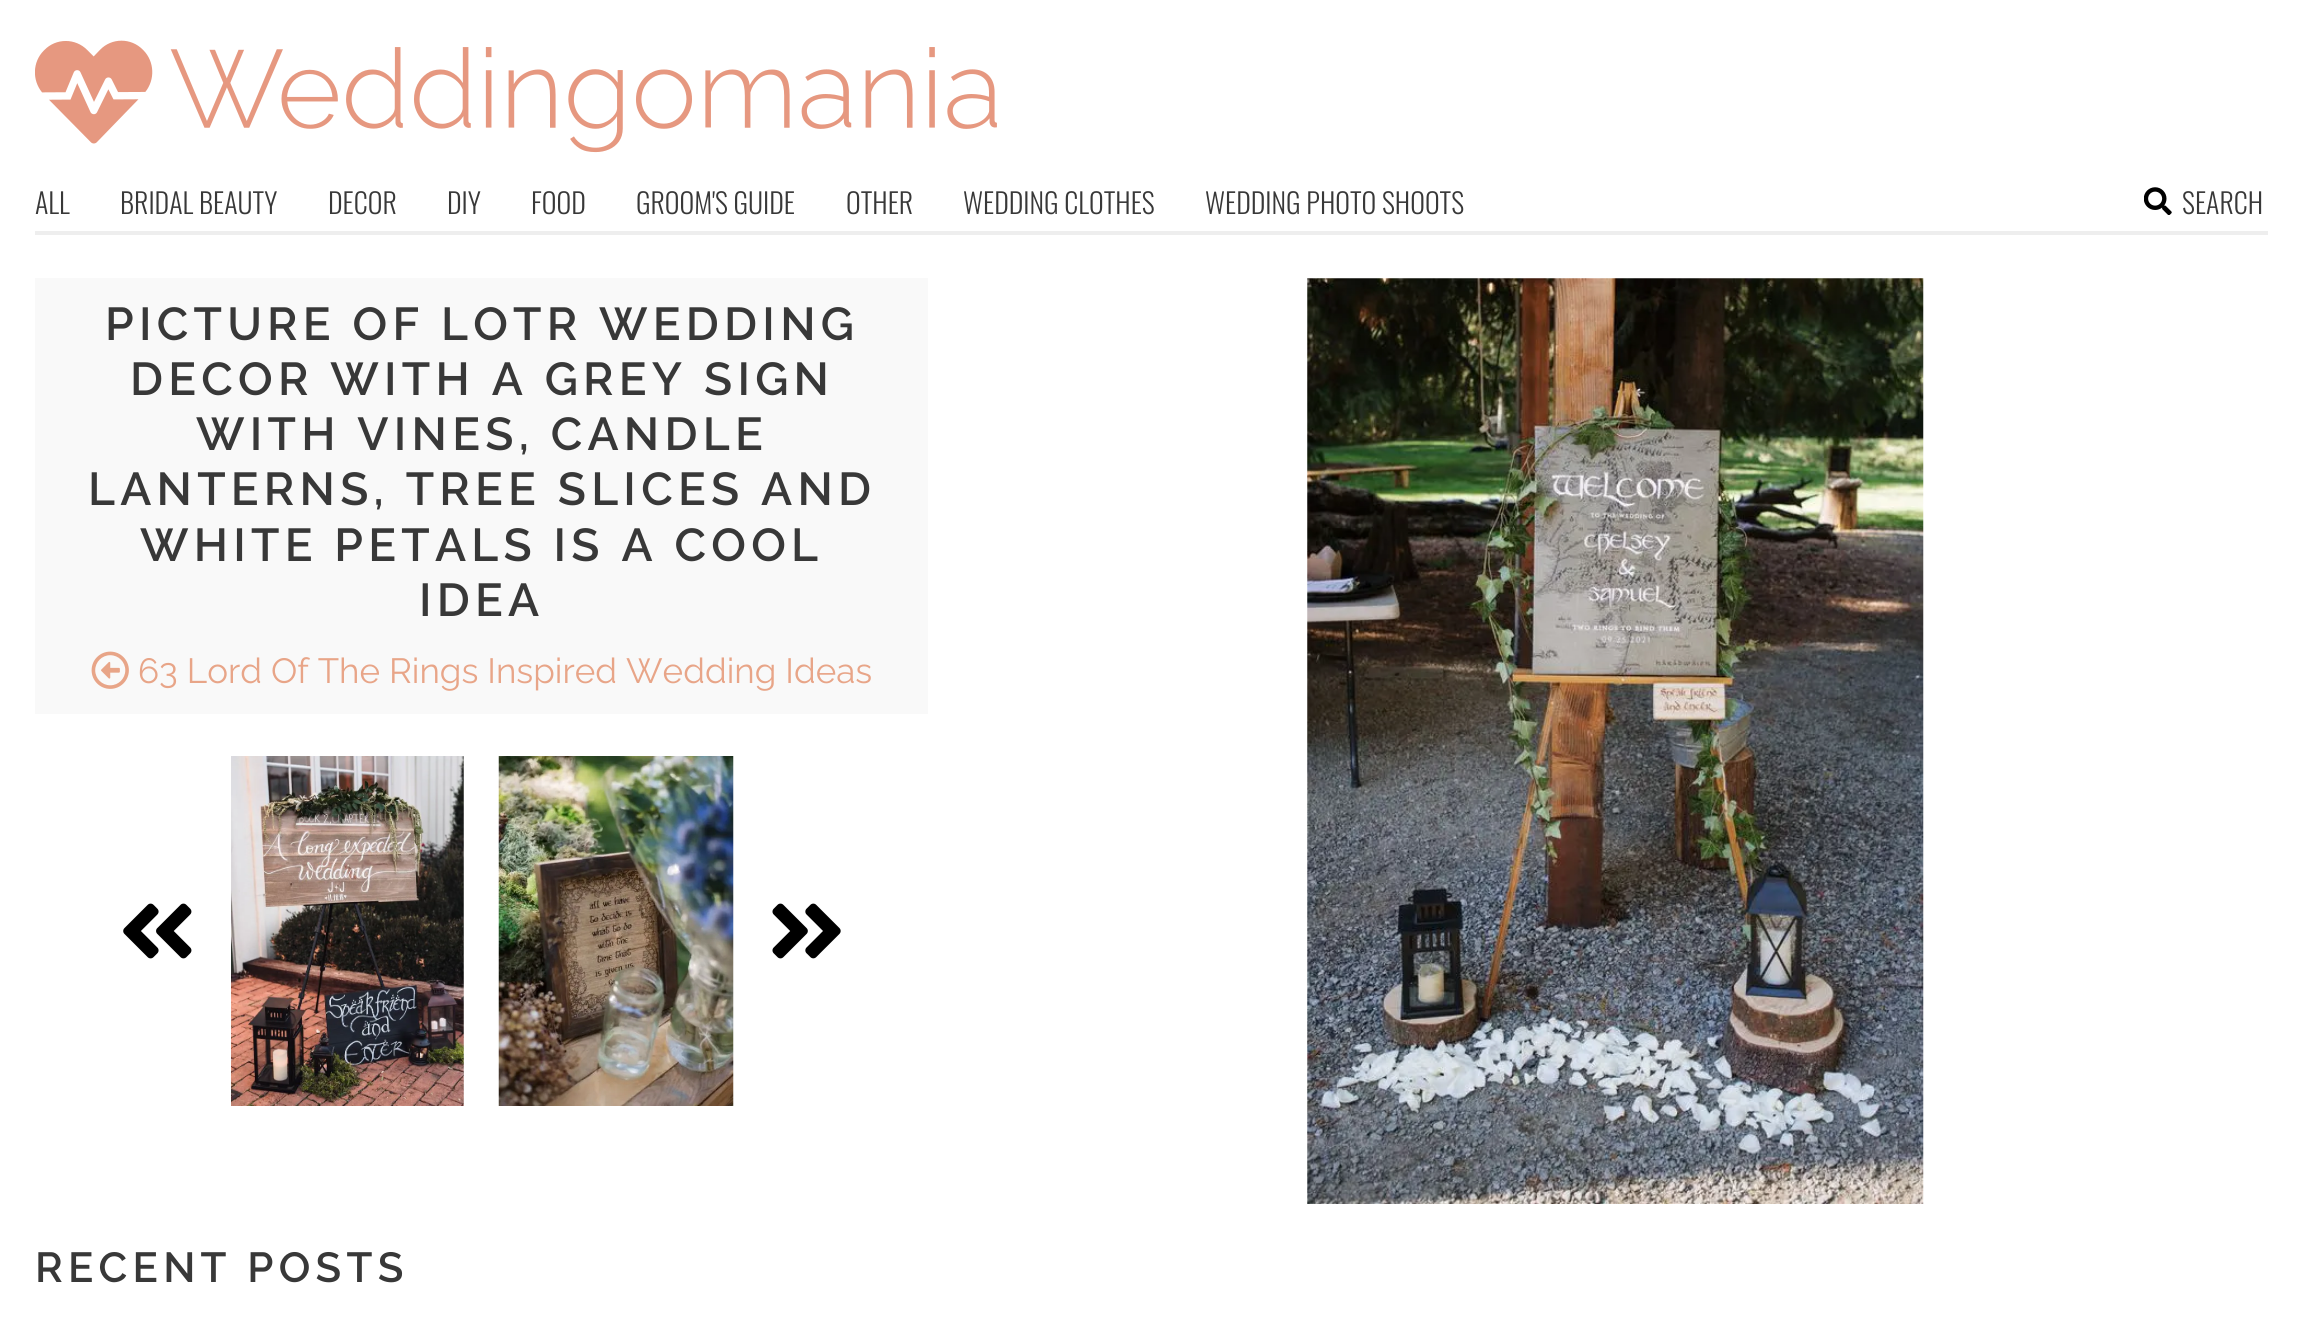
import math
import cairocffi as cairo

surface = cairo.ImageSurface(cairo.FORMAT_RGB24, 2303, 1321)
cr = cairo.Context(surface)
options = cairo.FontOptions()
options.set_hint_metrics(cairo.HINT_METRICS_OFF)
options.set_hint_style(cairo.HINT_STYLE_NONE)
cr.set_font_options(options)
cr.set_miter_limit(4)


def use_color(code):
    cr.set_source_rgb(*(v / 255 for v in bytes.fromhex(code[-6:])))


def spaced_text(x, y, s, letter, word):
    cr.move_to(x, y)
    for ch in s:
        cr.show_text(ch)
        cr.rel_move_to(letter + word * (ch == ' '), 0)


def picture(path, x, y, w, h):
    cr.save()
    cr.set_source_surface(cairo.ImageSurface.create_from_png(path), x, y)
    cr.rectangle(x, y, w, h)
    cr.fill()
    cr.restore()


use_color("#ffffff")
cr.paint()
picture("img1.png", 35, 40, 962, 113)
use_color("#eeeeee")
cr.rectangle(35, 231, 2233, 4)
cr.fill()
cr.select_font_face("Oswald Light")
cr.set_font_size(28)
use_color("#383838")
cr.move_to(35, 214)
cr.show_text("ALL")
cr.move_to(120, 214)
cr.show_text("BRIDAL BEAUTY")
cr.move_to(328, 214)
cr.show_text("DECOR")
cr.move_to(447, 214)
cr.show_text("DIY")
cr.move_to(531, 214)
cr.show_text("FOOD")
cr.move_to(636, 214)
cr.show_text("GROOM'S GUIDE")
cr.move_to(846, 214)
cr.show_text("OTHER")
cr.move_to(963, 214)
cr.show_text("WEDDING CLOTHES")
cr.move_to(1205, 214)
cr.show_text("WEDDING PHOTO SHOOTS")
picture("img2.png", 2144, 187, 28, 28)
cr.move_to(2182, 214)
cr.show_text("SEARCH")
use_color("#f9f9f9")
cr.rectangle(35, 278, 893, 436)
cr.fill()
cr.select_font_face("Raleway Thin")
cr.set_font_size(46.1)
use_color("#383838")
spaced_text(105, 340, "PICTURE OF LOTR WEDDING", 5.25, 0)
spaced_text(130, 395, "DECOR WITH A GREY SIGN", 5.25, 0)
spaced_text(196, 450, "WITH VINES, CANDLE", 5.25, 0)
spaced_text(88, 505, "LANTERNS, TREE SLICES AND", 5.25, 0)
spaced_text(140, 561, "WHITE PETALS IS A COOL", 5.25, 0)
spaced_text(419, 616, "IDEA", 5.25, 0)
picture("img3.png", 91, 651, 38, 38)
cr.select_font_face("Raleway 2 Thin")
cr.set_font_size(35)
use_color("#e8a588")
cr.move_to(138, 683)
cr.show_text("63 Lord Of The Rings Inspired Wedding Ideas")
picture("img4.png", 123, 903, 69, 56)
picture("img5.png", 231, 756, 233, 350)
picture("img6.png", 498, 756, 236, 350)
picture("img7.png", 772, 903, 69, 56)
picture("img8.png", 1307, 278, 617, 926)
cr.select_font_face("Raleway Thin")
cr.set_font_size(42)
use_color("#383838")
spaced_text(35, 1282, "RECENT POSTS", 5.25, 0)
surface.write_to_png("result.png")
